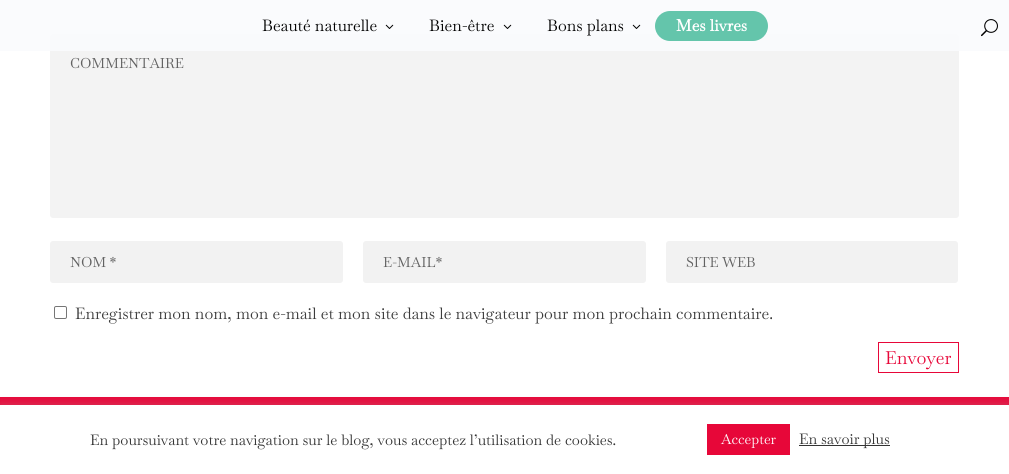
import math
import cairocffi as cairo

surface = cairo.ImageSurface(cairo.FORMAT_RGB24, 1009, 474)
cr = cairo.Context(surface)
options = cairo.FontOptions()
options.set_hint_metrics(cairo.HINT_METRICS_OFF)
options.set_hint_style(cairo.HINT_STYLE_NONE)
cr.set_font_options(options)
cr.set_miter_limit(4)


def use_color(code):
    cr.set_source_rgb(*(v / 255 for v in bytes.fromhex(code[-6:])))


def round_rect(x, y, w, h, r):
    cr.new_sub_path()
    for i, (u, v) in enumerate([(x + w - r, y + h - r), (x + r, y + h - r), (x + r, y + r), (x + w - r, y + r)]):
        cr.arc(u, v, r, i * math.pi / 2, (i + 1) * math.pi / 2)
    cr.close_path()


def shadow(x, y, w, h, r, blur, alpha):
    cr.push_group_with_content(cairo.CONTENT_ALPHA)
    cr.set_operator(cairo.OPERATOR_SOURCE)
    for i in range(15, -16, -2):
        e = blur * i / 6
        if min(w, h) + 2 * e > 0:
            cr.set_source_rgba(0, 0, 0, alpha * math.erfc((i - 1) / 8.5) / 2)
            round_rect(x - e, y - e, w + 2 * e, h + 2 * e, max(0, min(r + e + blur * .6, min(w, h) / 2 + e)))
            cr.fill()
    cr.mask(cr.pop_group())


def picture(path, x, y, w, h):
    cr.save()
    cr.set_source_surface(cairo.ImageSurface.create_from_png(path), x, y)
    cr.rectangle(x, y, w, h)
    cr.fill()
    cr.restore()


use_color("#ffffff")
cr.paint()
use_color("#f3f3f3")
round_rect(50, 34, 909, 184, 3)
cr.fill()
cr.set_source_rgba(0.98, 0.984, 0.992, 0.95)
cr.rectangle(0, 0, 1009, 51)
cr.fill()
cr.select_font_face("Baskervville")
cr.set_font_size(16)
use_color("#000000")
cr.move_to(262, 31)
cr.show_text("Beauté naturelle")
picture("img1.png", 385, 24, 9, 5)
cr.move_to(429, 31)
cr.show_text("Bien-être")
picture("img1.png", 503, 24, 9, 5)
cr.move_to(547, 31)
cr.show_text("Bons plans")
picture("img1.png", 632, 24, 9, 5)
use_color("#64c5ab")
round_rect(655, 11, 113, 30, 15)
cr.fill()
cr.select_font_face("Baskervville", cairo.FONT_SLANT_NORMAL, cairo.FONT_WEIGHT_BOLD)
use_color("#ffffff")
cr.move_to(676, 31)
cr.show_text("Mes livres")
picture("img2.png", 981, 19, 17, 18)
cr.select_font_face("Baskervville")
cr.set_font_size(14)
use_color("#616161")
cr.move_to(70, 68)
cr.show_text("COMMENTAIRE")
use_color("#f2f2f2")
round_rect(50, 241, 293, 42, 3)
cr.fill()
use_color("#616161")
cr.move_to(70, 267)
cr.show_text("NOM *")
use_color("#f2f2f2")
round_rect(363, 241, 283, 42, 3)
cr.fill()
use_color("#616161")
cr.move_to(383, 267)
cr.show_text("E-MAIL*")
use_color("#f2f2f2")
round_rect(666, 241, 292, 42, 3)
cr.fill()
use_color("#616161")
cr.move_to(686, 267)
cr.show_text("SITE WEB")
round_rect(54.5, 306.5, 12, 12, 1.5)
use_color("#767676")
cr.set_line_width(1)
cr.stroke()
cr.set_font_size(16)
use_color("#3b3b3b")
cr.move_to(75, 319)
cr.show_text("Enregistrer mon nom, mon e-mail et mon site dans le navigateur pour mon prochain commentaire.")
cr.rectangle(878.5, 342.5, 80, 30)
use_color("#e70739")
cr.stroke()
cr.set_font_size(18)
cr.move_to(885, 364)
cr.show_text("Envoyer")
cr.rectangle(0, 397, 1009, 8)
cr.fill()
use_color("#acabab")
shadow(0, 404, 1009, 69, 0, 5, 0.3)
use_color("#ffffff")
cr.rectangle(0, 405, 1009, 69)
cr.fill()
cr.set_font_size(14.65)
use_color("#333333")
cr.move_to(90, 445)
cr.show_text("En poursuivant votre navigation sur le blog, vous acceptez l’utilisation de cookies.")
use_color("#e70739")
cr.rectangle(707, 424, 83, 31)
cr.fill()
cr.set_font_size(14)
use_color("#ffffff")
cr.move_to(721, 444)
cr.show_text("Accepter")
use_color("#333333")
cr.rectangle(799, 445, 91, 1)
cr.fill()
cr.set_font_size(14.65)
cr.move_to(799, 444)
cr.show_text("En savoir plus")
surface.write_to_png("result.png")
